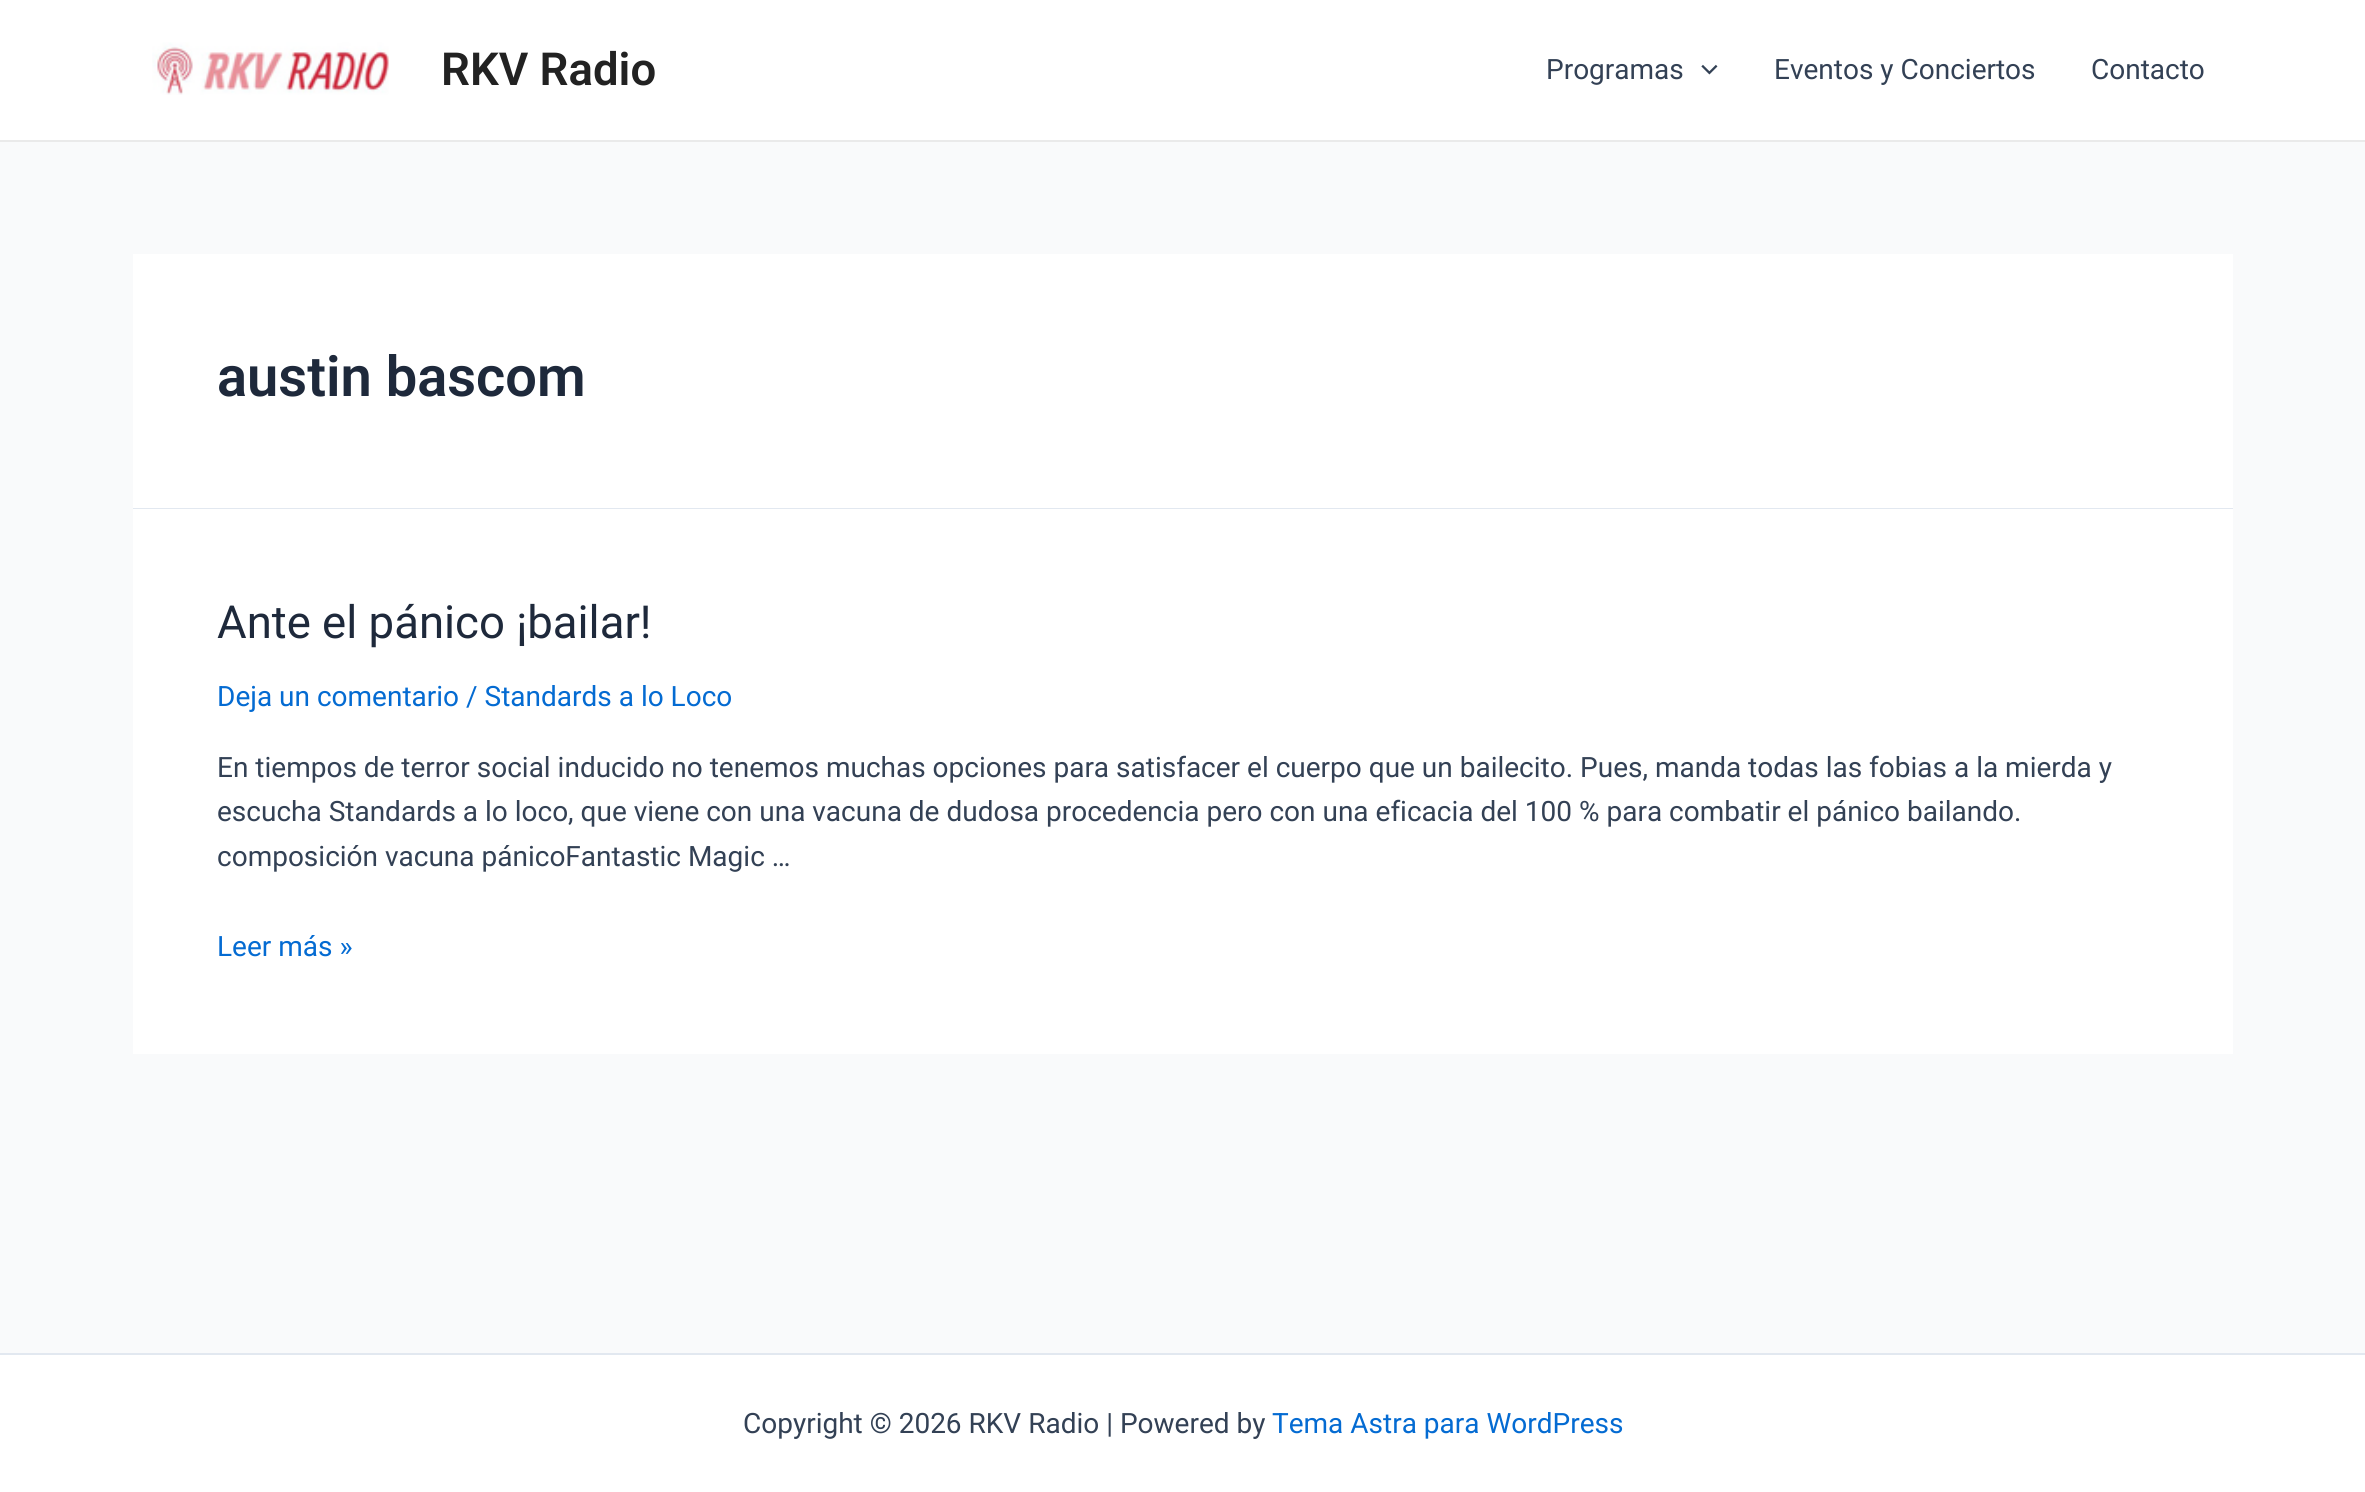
import math
import cairocffi as cairo

surface = cairo.ImageSurface(cairo.FORMAT_RGB24, 2365, 1492)
cr = cairo.Context(surface)
options = cairo.FontOptions()
options.set_hint_metrics(cairo.HINT_METRICS_OFF)
options.set_hint_style(cairo.HINT_STYLE_NONE)
cr.set_font_options(options)
cr.set_miter_limit(4)


def use_color(code):
    cr.set_source_rgb(*(v / 255 for v in bytes.fromhex(code[-6:])))


def picture(path, x, y, w, h):
    cr.save()
    cr.set_source_surface(cairo.ImageSurface.create_from_png(path), x, y)
    cr.rectangle(x, y, w, h)
    cr.fill()
    cr.restore()


use_color("#f9fafb")
cr.paint()
use_color("#ffffff")
cr.rectangle(0, 0, 2365, 140)
cr.fill()
use_color("#eaeaea")
cr.rectangle(0, 140, 2365, 2)
cr.fill()
picture("img1.png", 152, 42, 237, 53)
cr.select_font_face("Roboto SemiBold")
cr.set_font_size(45.5)
use_color("#222222")
cr.move_to(441, 85)
cr.show_text("RKV Radio")
cr.select_font_face("Roboto")
cr.set_font_size(28)
use_color("#334155")
cr.move_to(1546, 79)
cr.show_text("Programas")
picture("img2.png", 1701, 64, 17, 11)
cr.move_to(1774, 79)
cr.show_text("Eventos y Conciertos")
cr.move_to(2091, 79)
cr.show_text("Contacto")
use_color("#ffffff")
cr.rectangle(133, 254, 2100, 254)
cr.fill()
use_color("#e2e8f0")
cr.rectangle(133, 508, 2100, 1)
cr.fill()
cr.select_font_face("Roboto SemiBold")
cr.set_font_size(56)
use_color("#1e293b")
cr.move_to(217, 396)
cr.show_text("austin bascom")
use_color("#ffffff")
cr.rectangle(133, 509, 2100, 545)
cr.fill()
cr.select_font_face("Roboto")
cr.set_font_size(45.5)
use_color("#1e293b")
cr.move_to(217, 638)
cr.show_text("Ante el pánico ¡bailar!")
cr.set_font_size(28)
use_color("#046bd2")
cr.move_to(217, 706)
cr.show_text("Deja un comentario / Standards a lo Loco")
use_color("#334155")
cr.move_to(217, 777)
cr.show_text("En tiempos de terror social inducido no tenemos muchas opciones para satisfacer el cuerpo que un bailecito. Pues, manda todas las fobias a la mierda y")
cr.move_to(217, 821)
cr.show_text("escucha Standards a lo loco, que viene con una vacuna de dudosa procedencia pero con una eficacia del 100 % para combatir el pánico bailando.")
cr.move_to(217, 866)
cr.show_text("composición vacuna pánicoFantastic Magic …")
use_color("#046bd2")
cr.move_to(217, 956)
cr.show_text("Leer más »")
use_color("#ffffff")
cr.rectangle(0, 1355, 2365, 137)
cr.fill()
use_color("#e2e8f0")
cr.rectangle(0, 1353, 2365, 2)
cr.fill()
use_color("#334155")
cr.move_to(743, 1433)
cr.show_text("Copyright © 2026 RKV Radio | Powered by")
use_color("#046bd2")
cr.move_to(1272, 1433)
cr.show_text("Tema Astra para WordPress")
surface.write_to_png("result.png")
